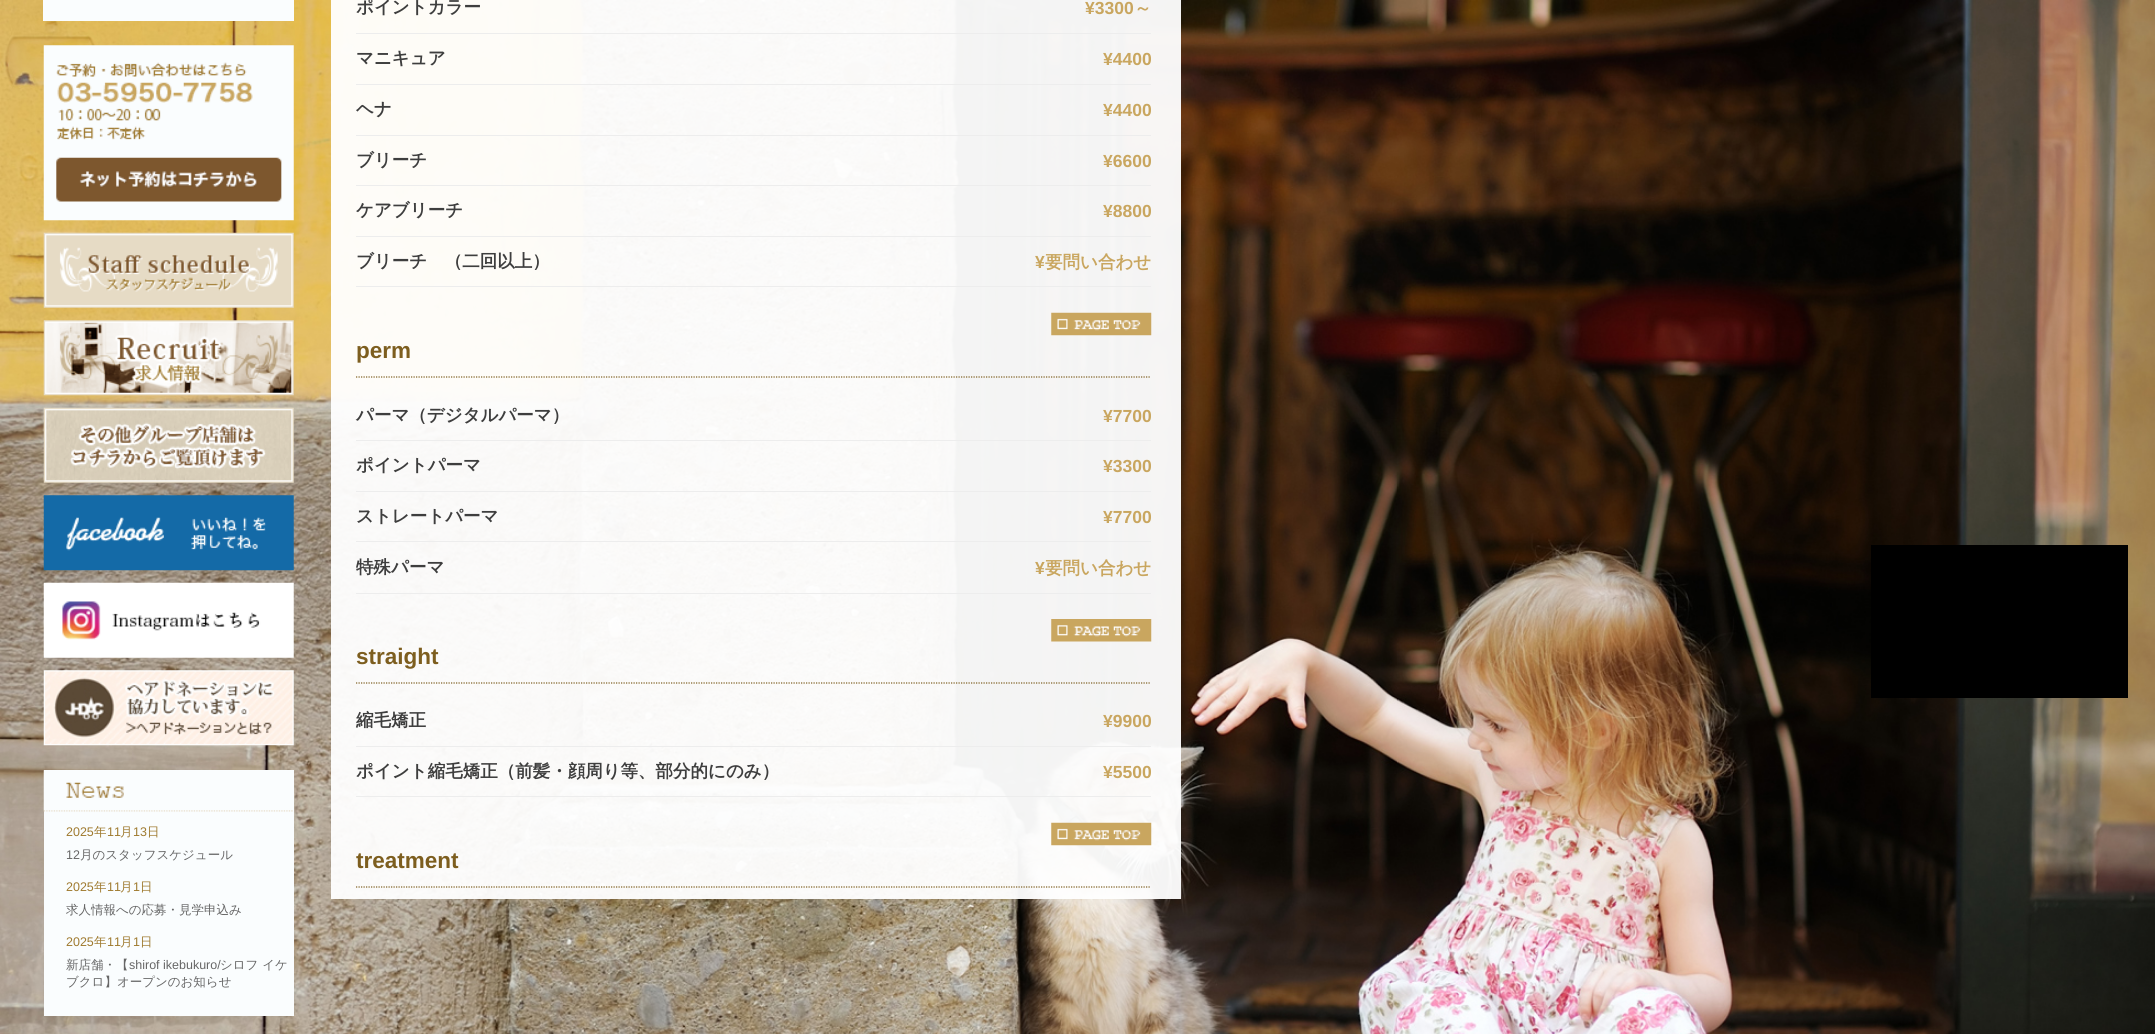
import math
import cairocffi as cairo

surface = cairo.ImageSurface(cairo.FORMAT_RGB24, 2155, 1034)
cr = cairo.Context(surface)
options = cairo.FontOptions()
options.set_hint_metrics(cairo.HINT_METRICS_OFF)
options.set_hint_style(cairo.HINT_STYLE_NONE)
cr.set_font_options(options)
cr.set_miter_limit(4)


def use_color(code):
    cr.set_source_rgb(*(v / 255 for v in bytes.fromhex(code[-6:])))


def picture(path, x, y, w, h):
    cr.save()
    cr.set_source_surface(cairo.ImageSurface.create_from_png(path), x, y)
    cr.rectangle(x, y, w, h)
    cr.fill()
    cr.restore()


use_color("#ffffff")
cr.paint()
picture("img1.png", 0, 0, 2155, 1034)
cr.set_source_rgba(1, 1, 1, 0.95)
cr.rectangle(331, 0, 850, 899)
cr.fill()
use_color("#ededed")
cr.rectangle(356, 33, 795, 1)
cr.fill()
cr.select_font_face("WenQuanYi Zen Hei", cairo.FONT_SLANT_NORMAL, cairo.FONT_WEIGHT_BOLD)
cr.set_font_size(17.5)
use_color("#3e3e3e")
cr.move_to(356, 13)
cr.show_text("ポイントカラー")
cr.select_font_face("Liberation Sans", cairo.FONT_SLANT_NORMAL, cairo.FONT_WEIGHT_BOLD)
use_color("#c9a65f")
cr.move_to(1085, 14)
cr.show_text("¥3300")
cr.select_font_face("WenQuanYi Zen Hei", cairo.FONT_SLANT_NORMAL, cairo.FONT_WEIGHT_BOLD)
cr.move_to(1134, 14)
cr.show_text("～")
use_color("#ededed")
cr.rectangle(356, 84, 795, 1)
cr.fill()
use_color("#3e3e3e")
cr.move_to(356, 64)
cr.show_text("マニキュア")
cr.select_font_face("Liberation Sans", cairo.FONT_SLANT_NORMAL, cairo.FONT_WEIGHT_BOLD)
use_color("#c9a65f")
cr.move_to(1103, 65)
cr.show_text("¥4400")
use_color("#ededed")
cr.rectangle(356, 135, 795, 1)
cr.fill()
cr.select_font_face("WenQuanYi Zen Hei", cairo.FONT_SLANT_NORMAL, cairo.FONT_WEIGHT_BOLD)
use_color("#3e3e3e")
cr.move_to(356, 115)
cr.show_text("ヘナ")
cr.select_font_face("Liberation Sans", cairo.FONT_SLANT_NORMAL, cairo.FONT_WEIGHT_BOLD)
use_color("#c9a65f")
cr.move_to(1103, 116)
cr.show_text("¥4400")
use_color("#ededed")
cr.rectangle(356, 185, 795, 1)
cr.fill()
cr.select_font_face("WenQuanYi Zen Hei", cairo.FONT_SLANT_NORMAL, cairo.FONT_WEIGHT_BOLD)
use_color("#3e3e3e")
cr.move_to(356, 166)
cr.show_text("ブリーチ")
cr.select_font_face("Liberation Sans", cairo.FONT_SLANT_NORMAL, cairo.FONT_WEIGHT_BOLD)
use_color("#c9a65f")
cr.move_to(1103, 167)
cr.show_text("¥6600")
use_color("#ededed")
cr.rectangle(356, 236, 795, 1)
cr.fill()
cr.select_font_face("WenQuanYi Zen Hei", cairo.FONT_SLANT_NORMAL, cairo.FONT_WEIGHT_BOLD)
use_color("#3e3e3e")
cr.move_to(356, 216)
cr.show_text("ケアブリーチ")
cr.select_font_face("Liberation Sans", cairo.FONT_SLANT_NORMAL, cairo.FONT_WEIGHT_BOLD)
use_color("#c9a65f")
cr.move_to(1103, 217)
cr.show_text("¥8800")
use_color("#ededed")
cr.rectangle(356, 286, 795, 1)
cr.fill()
cr.select_font_face("WenQuanYi Zen Hei", cairo.FONT_SLANT_NORMAL, cairo.FONT_WEIGHT_BOLD)
use_color("#3e3e3e")
cr.move_to(356, 267)
cr.show_text("ブリーチ　（二回以上）")
cr.select_font_face("Liberation Sans", cairo.FONT_SLANT_NORMAL, cairo.FONT_WEIGHT_BOLD)
use_color("#c9a65f")
cr.move_to(1035, 268)
cr.show_text("¥")
cr.select_font_face("WenQuanYi Zen Hei", cairo.FONT_SLANT_NORMAL, cairo.FONT_WEIGHT_BOLD)
cr.move_to(1045, 268)
cr.show_text("要問い合わせ")
picture("img2.png", 1051, 312, 101, 24)
cr.new_path()
cr.move_to(356, 377)
cr.line_to(1151, 377)
use_color("#7d5e1f")
cr.set_line_width(1.2)
cr.set_dash([1.25, 1.25])
cr.stroke()
cr.select_font_face("Liberation Sans", cairo.FONT_SLANT_NORMAL, cairo.FONT_WEIGHT_BOLD)
cr.set_font_size(22.5)
cr.move_to(356, 358)
cr.show_text("perm")
use_color("#ededed")
cr.rectangle(356, 440, 795, 1)
cr.fill()
cr.select_font_face("WenQuanYi Zen Hei", cairo.FONT_SLANT_NORMAL, cairo.FONT_WEIGHT_BOLD)
cr.set_font_size(17.5)
use_color("#3e3e3e")
cr.move_to(356, 421)
cr.show_text("パーマ（デジタルパーマ）")
cr.select_font_face("Liberation Sans", cairo.FONT_SLANT_NORMAL, cairo.FONT_WEIGHT_BOLD)
use_color("#c9a65f")
cr.move_to(1103, 422)
cr.show_text("¥7700")
use_color("#ededed")
cr.rectangle(356, 491, 795, 1)
cr.fill()
cr.select_font_face("WenQuanYi Zen Hei", cairo.FONT_SLANT_NORMAL, cairo.FONT_WEIGHT_BOLD)
use_color("#3e3e3e")
cr.move_to(356, 471)
cr.show_text("ポイントパーマ")
cr.select_font_face("Liberation Sans", cairo.FONT_SLANT_NORMAL, cairo.FONT_WEIGHT_BOLD)
use_color("#c9a65f")
cr.move_to(1103, 472)
cr.show_text("¥3300")
use_color("#ededed")
cr.rectangle(356, 541, 795, 1)
cr.fill()
cr.select_font_face("WenQuanYi Zen Hei", cairo.FONT_SLANT_NORMAL, cairo.FONT_WEIGHT_BOLD)
use_color("#3e3e3e")
cr.move_to(356, 522)
cr.show_text("ストレートパーマ")
cr.select_font_face("Liberation Sans", cairo.FONT_SLANT_NORMAL, cairo.FONT_WEIGHT_BOLD)
use_color("#c9a65f")
cr.move_to(1103, 523)
cr.show_text("¥7700")
use_color("#ededed")
cr.rectangle(356, 593, 795, 1)
cr.fill()
cr.select_font_face("WenQuanYi Zen Hei", cairo.FONT_SLANT_NORMAL, cairo.FONT_WEIGHT_BOLD)
use_color("#3e3e3e")
cr.move_to(356, 573)
cr.show_text("特殊パーマ")
cr.select_font_face("Liberation Sans", cairo.FONT_SLANT_NORMAL, cairo.FONT_WEIGHT_BOLD)
use_color("#c9a65f")
cr.move_to(1035, 574)
cr.show_text("¥")
cr.select_font_face("WenQuanYi Zen Hei", cairo.FONT_SLANT_NORMAL, cairo.FONT_WEIGHT_BOLD)
cr.move_to(1045, 574)
cr.show_text("要問い合わせ")
picture("img3.png", 1051, 619, 101, 23)
cr.new_path()
cr.move_to(356, 683)
cr.line_to(1151, 683)
use_color("#7d5e1f")
cr.stroke()
cr.select_font_face("Liberation Sans", cairo.FONT_SLANT_NORMAL, cairo.FONT_WEIGHT_BOLD)
cr.set_font_size(22.5)
cr.move_to(356, 664)
cr.show_text("straight")
use_color("#ededed")
cr.rectangle(356, 746, 795, 1)
cr.fill()
cr.select_font_face("WenQuanYi Zen Hei", cairo.FONT_SLANT_NORMAL, cairo.FONT_WEIGHT_BOLD)
cr.set_font_size(17.5)
use_color("#3e3e3e")
cr.move_to(356, 726)
cr.show_text("縮毛矯正")
cr.select_font_face("Liberation Sans", cairo.FONT_SLANT_NORMAL, cairo.FONT_WEIGHT_BOLD)
use_color("#c9a65f")
cr.move_to(1103, 727)
cr.show_text("¥9900")
use_color("#ededed")
cr.rectangle(356, 796, 795, 1)
cr.fill()
cr.select_font_face("WenQuanYi Zen Hei", cairo.FONT_SLANT_NORMAL, cairo.FONT_WEIGHT_BOLD)
use_color("#3e3e3e")
cr.move_to(356, 777)
cr.show_text("ポイント縮毛矯正（前髪・顔周り等、部分的にのみ）")
cr.select_font_face("Liberation Sans", cairo.FONT_SLANT_NORMAL, cairo.FONT_WEIGHT_BOLD)
use_color("#c9a65f")
cr.move_to(1103, 778)
cr.show_text("¥5500")
picture("img4.png", 1051, 822, 101, 24)
cr.new_path()
cr.move_to(356, 887)
cr.line_to(1151, 887)
use_color("#7d5e1f")
cr.stroke()
cr.set_font_size(22.5)
cr.move_to(356, 868)
cr.show_text("treatment")
use_color("#000000")
cr.rectangle(1871, 545, 257, 153)
cr.fill()
use_color("#fafdfe")
cr.rectangle(43, 0, 251, 21)
cr.fill()
picture("img5.png", 43, 45, 251, 176)
picture("img6.png", 43, 232, 251, 76)
picture("img7.png", 43, 320, 251, 76)
picture("img8.png", 43, 407, 251, 76)
picture("img9.png", 43, 495, 251, 76)
picture("img10.png", 43, 582, 251, 76)
picture("img11.png", 43, 670, 251, 76)
cr.rectangle(44, 770, 250, 246)
cr.fill()
picture("img12.png", 43, 770, 250, 42)
cr.select_font_face("Liberation Sans")
cr.set_font_size(12.5)
use_color("#9f7a2f")
cr.move_to(66, 836)
cr.show_text("2025")
cr.select_font_face("WenQuanYi Zen Hei Medium")
cr.move_to(94, 836)
cr.show_text("年")
cr.select_font_face("Liberation Sans")
cr.move_to(107, 836)
cr.show_text("11")
cr.select_font_face("WenQuanYi Zen Hei Medium")
cr.move_to(120, 836)
cr.show_text("月")
cr.select_font_face("Liberation Sans")
cr.move_to(133, 836)
cr.show_text("13")
cr.select_font_face("WenQuanYi Zen Hei Medium")
cr.move_to(147, 836)
cr.show_text("日")
cr.select_font_face("Liberation Sans")
use_color("#666666")
cr.move_to(66, 859)
cr.show_text("12")
cr.select_font_face("WenQuanYi Zen Hei Medium")
cr.move_to(80, 859)
cr.show_text("月のスタッフスケジュール")
cr.select_font_face("Liberation Sans")
use_color("#9f7a2f")
cr.move_to(66, 891)
cr.show_text("2025")
cr.select_font_face("WenQuanYi Zen Hei Medium")
cr.move_to(94, 891)
cr.show_text("年")
cr.select_font_face("Liberation Sans")
cr.move_to(107, 891)
cr.show_text("11")
cr.select_font_face("WenQuanYi Zen Hei Medium")
cr.move_to(120, 891)
cr.show_text("月")
cr.select_font_face("Liberation Sans")
cr.move_to(133, 891)
cr.show_text("1")
cr.select_font_face("WenQuanYi Zen Hei Medium")
cr.move_to(140, 891)
cr.show_text("日")
use_color("#666666")
cr.move_to(66, 914)
cr.show_text("求人情報への応募・見学申込み")
cr.select_font_face("Liberation Sans")
use_color("#9f7a2f")
cr.move_to(66, 946)
cr.show_text("2025")
cr.select_font_face("WenQuanYi Zen Hei Medium")
cr.move_to(94, 946)
cr.show_text("年")
cr.select_font_face("Liberation Sans")
cr.move_to(107, 946)
cr.show_text("11")
cr.select_font_face("WenQuanYi Zen Hei Medium")
cr.move_to(120, 946)
cr.show_text("月")
cr.select_font_face("Liberation Sans")
cr.move_to(133, 946)
cr.show_text("1")
cr.select_font_face("WenQuanYi Zen Hei Medium")
cr.move_to(140, 946)
cr.show_text("日")
use_color("#666666")
cr.move_to(66, 969)
cr.show_text("新店舗・【")
cr.select_font_face("Liberation Sans")
cr.move_to(129, 969)
cr.show_text("shirof ikebukuro/")
cr.select_font_face("WenQuanYi Zen Hei Medium")
cr.move_to(220, 969)
cr.show_text("シロフ イケ")
cr.move_to(66, 986)
cr.show_text("ブクロ】オープンのお知らせ")
surface.write_to_png("result.png")
